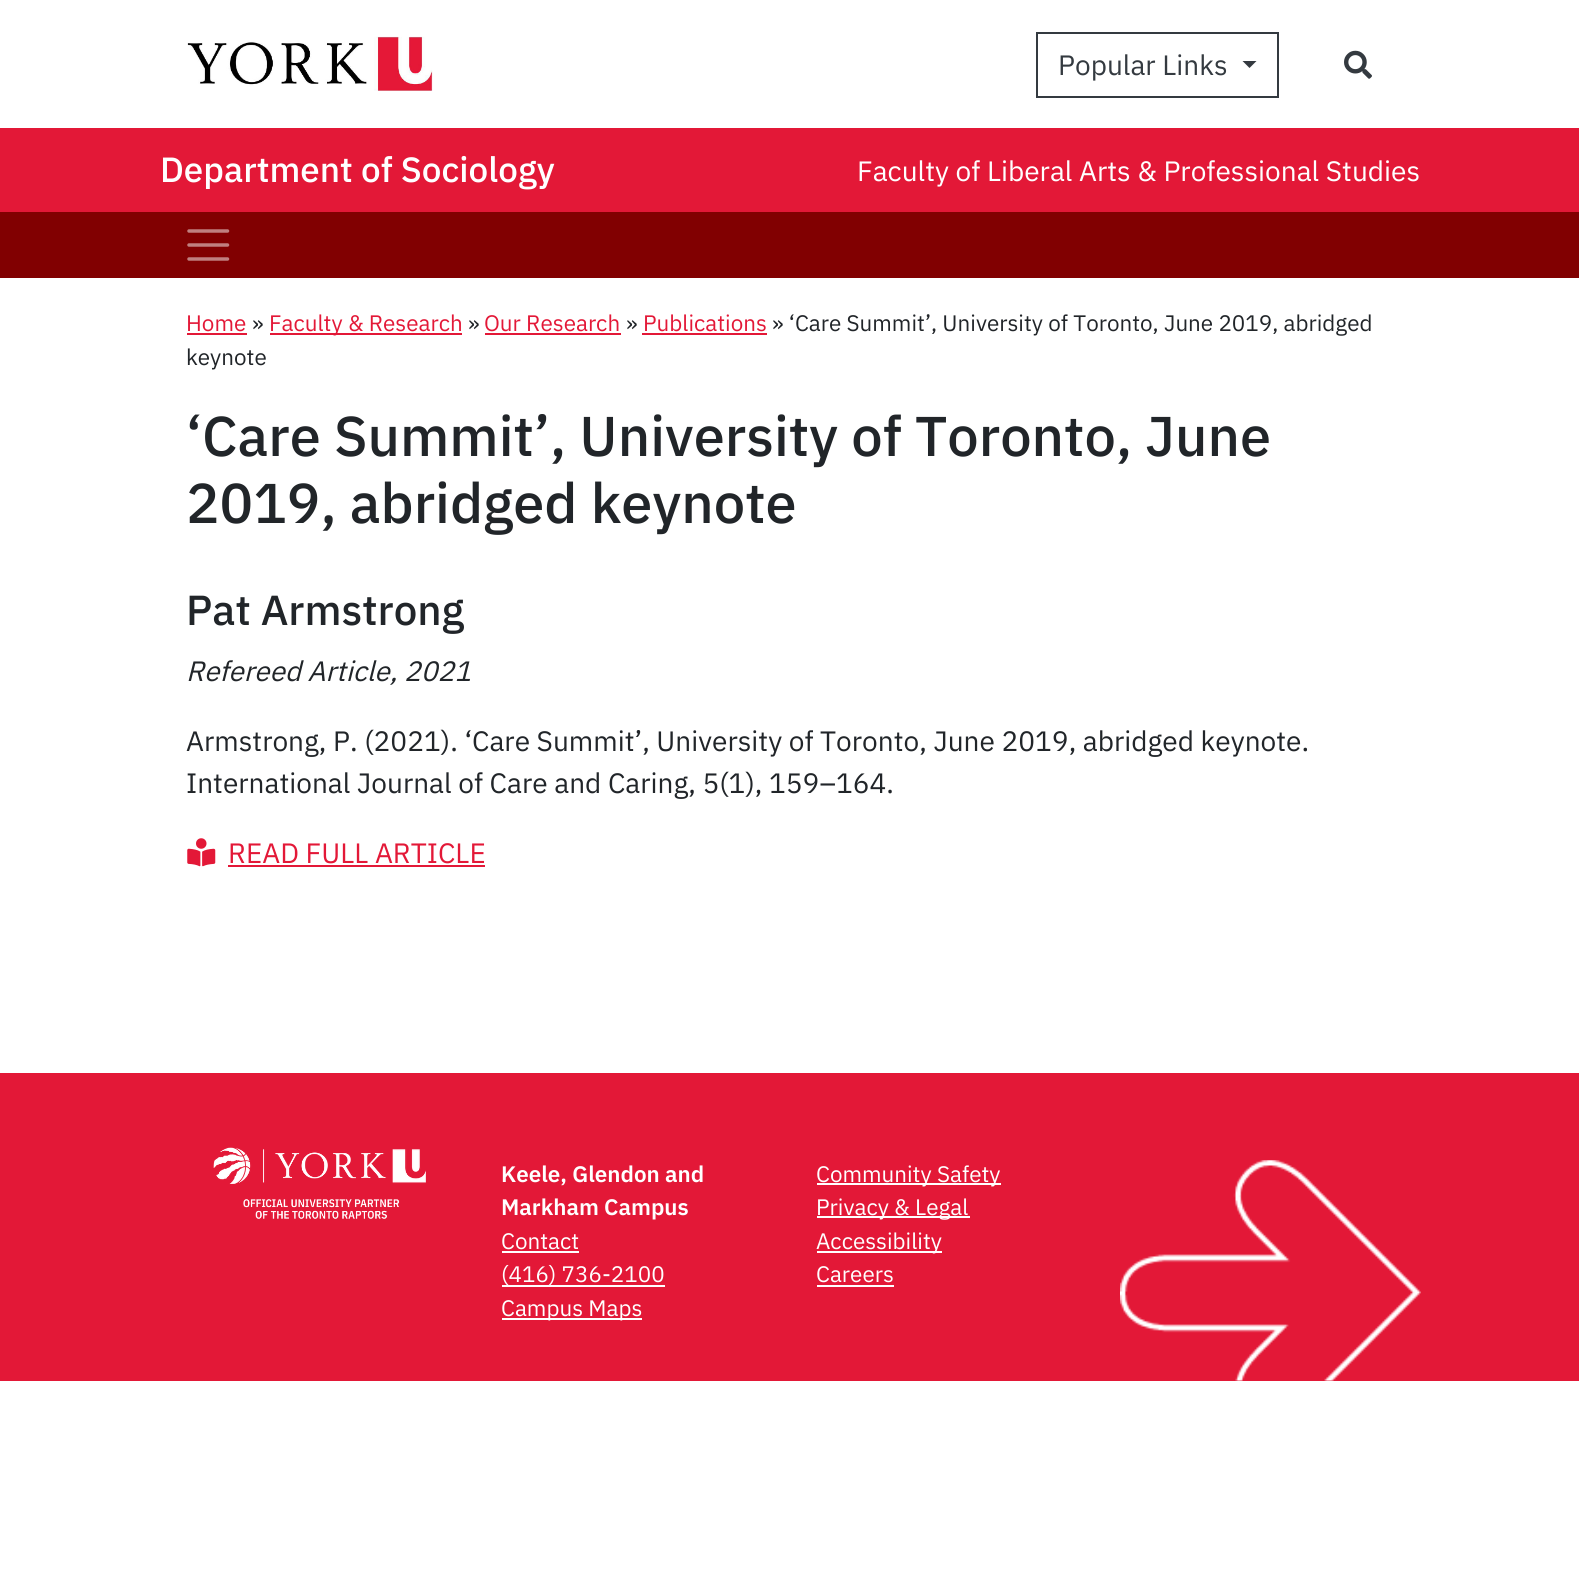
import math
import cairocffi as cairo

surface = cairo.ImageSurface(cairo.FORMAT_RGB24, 1579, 1584)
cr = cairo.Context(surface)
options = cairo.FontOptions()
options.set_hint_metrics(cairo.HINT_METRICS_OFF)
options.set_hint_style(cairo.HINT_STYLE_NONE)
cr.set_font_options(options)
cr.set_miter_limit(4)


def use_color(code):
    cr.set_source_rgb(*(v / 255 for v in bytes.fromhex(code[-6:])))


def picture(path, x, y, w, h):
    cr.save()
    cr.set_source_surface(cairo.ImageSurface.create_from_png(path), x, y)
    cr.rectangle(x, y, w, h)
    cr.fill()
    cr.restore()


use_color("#ffffff")
cr.paint()
picture("img1.png", 187, 36, 246, 55)
cr.rectangle(1037, 33, 241, 64)
use_color("#343a40")
cr.stroke()
cr.select_font_face("IBM Plex Sans")
cr.set_font_size(28)
cr.move_to(1058, 75)
cr.show_text("Popular Links")
cr.new_path()
cr.move_to(1242.5, 61)
cr.line_to(1256.5, 61)
cr.line_to(1249.5, 68)
cr.close_path()
cr.fill()
picture("img2.png", 1344, 50, 28, 29)
use_color("#e31837")
cr.rectangle(0, 128, 1579, 84)
cr.fill()
cr.select_font_face("IBM Plex Sans Medium")
cr.set_font_size(35)
use_color("#ffffff")
cr.move_to(160, 182)
cr.show_text("Department of Sociology")
cr.select_font_face("IBM Plex Sans")
cr.set_font_size(28)
cr.move_to(857, 181)
cr.show_text("Faculty of Liberal Arts & Professional Studies")
use_color("#810001")
cr.rectangle(0, 212, 1579, 66)
cr.fill()
cr.new_path()
cr.move_to(189, 231)
cr.line_to(227.5, 231)
cr.move_to(189, 245)
cr.line_to(227.5, 245)
cr.move_to(189, 259)
cr.line_to(227.5, 259)
use_color("#c08080")
cr.set_line_width(3.5)
cr.set_line_cap(cairo.LINE_CAP_ROUND)
cr.stroke()
cr.set_font_size(22.4)
use_color("#e31837")
cr.move_to(186, 331)
cr.show_text("Home")
cr.rectangle(187, 333, 60, 2)
cr.fill()
use_color("#212529")
cr.move_to(252, 331)
cr.show_text("»")
use_color("#e31837")
cr.rectangle(270, 333, 192, 2)
cr.fill()
cr.move_to(269, 331)
cr.show_text("Faculty & Research")
use_color("#212529")
cr.move_to(468, 331)
cr.show_text("»")
use_color("#e31837")
cr.move_to(484, 331)
cr.show_text("Our Research")
cr.rectangle(485, 333, 136, 2)
cr.fill()
use_color("#212529")
cr.move_to(626, 331)
cr.show_text("»")
use_color("#e31837")
cr.move_to(643, 331)
cr.show_text("Publications")
cr.rectangle(642, 333, 125, 2)
cr.fill()
use_color("#212529")
cr.move_to(772, 331)
cr.show_text("» ‘Care Summit’, University of Toronto, June 2019, abridged")
cr.move_to(186, 365)
cr.show_text("keynote")
cr.select_font_face("IBM Plex Sans Medium")
cr.set_font_size(56)
cr.move_to(186, 456)
cr.show_text("‘Care Summit’, University of Toronto, June")
cr.move_to(186, 523)
cr.show_text("2019, abridged keynote")
cr.set_font_size(42)
cr.move_to(186, 625)
cr.show_text("Pat Armstrong")
cr.select_font_face("IBM Plex Sans", cairo.FONT_SLANT_ITALIC)
cr.set_font_size(28)
cr.move_to(186, 681)
cr.show_text("Refereed Article, 2021")
cr.select_font_face("IBM Plex Sans")
cr.move_to(186, 751)
cr.show_text("Armstrong, P. (2021). ‘Care Summit’, University of Toronto, June 2019, abridged keynote.")
cr.move_to(186, 793)
cr.show_text("International Journal of Care and Caring, 5(1), 159–164.")
picture("img3.png", 187, 838, 29, 29)
use_color("#e31837")
cr.move_to(228, 863)
cr.show_text("READ FULL ARTICLE")
cr.rectangle(228, 865, 257, 2)
cr.fill()
cr.rectangle(0, 1073, 1579, 308)
cr.fill()
picture("img4.png", 1120, 1160, 301, 221)
picture("img5.png", 213, 1147, 213, 72)
cr.select_font_face("IBM Plex Sans SemiBold")
cr.set_font_size(22.4)
use_color("#ffffff")
cr.move_to(501, 1182)
cr.show_text("Keele, Glendon and")
cr.move_to(501, 1215)
cr.show_text("Markham Campus")
cr.select_font_face("IBM Plex Sans")
cr.move_to(501, 1249)
cr.show_text("Contact")
cr.rectangle(502, 1251, 77, 2)
cr.fill()
cr.rectangle(502, 1285, 163, 2)
cr.fill()
cr.move_to(501, 1282)
cr.show_text("(416) 736-2100")
cr.rectangle(502, 1318, 140, 2)
cr.fill()
cr.move_to(501, 1316)
cr.show_text("Campus Maps")
cr.rectangle(817, 1183, 184, 2)
cr.fill()
cr.move_to(816, 1182)
cr.show_text("Community Safety")
cr.rectangle(817, 1216, 153, 2)
cr.fill()
cr.move_to(816, 1215)
cr.show_text("Privacy & Legal")
cr.rectangle(817, 1251, 125, 2)
cr.fill()
cr.move_to(816, 1249)
cr.show_text("Accessibility")
cr.move_to(816, 1282)
cr.show_text("Careers")
cr.rectangle(817, 1285, 77, 2)
cr.fill()
surface.write_to_png("result.png")
